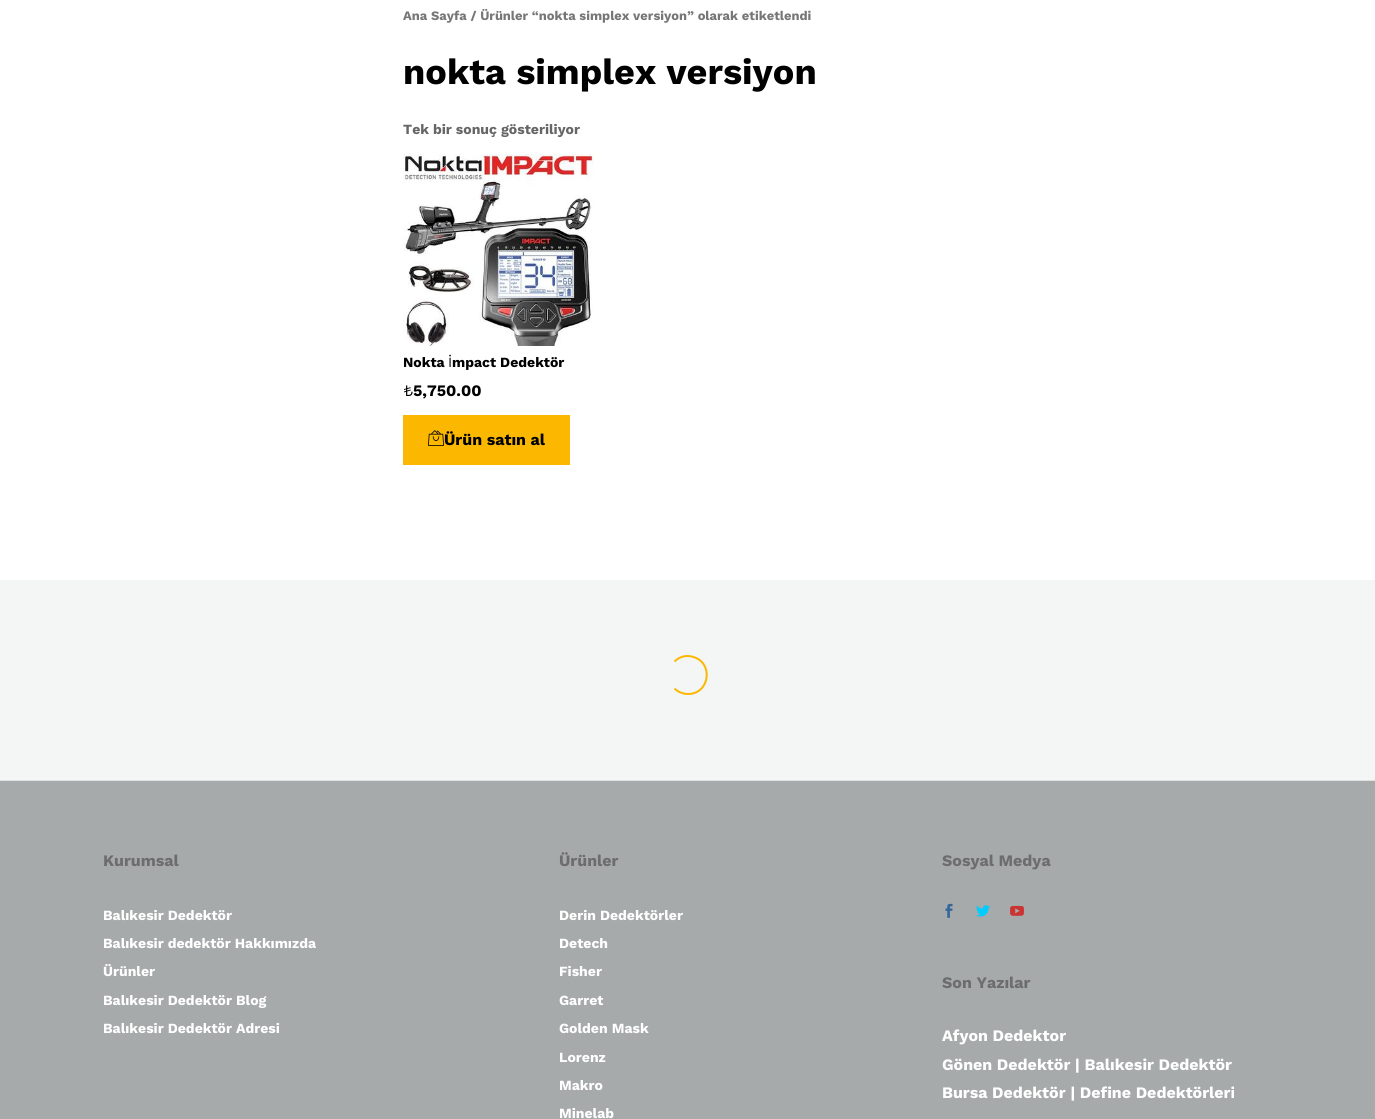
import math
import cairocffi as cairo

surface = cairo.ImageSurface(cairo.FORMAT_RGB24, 1375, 1119)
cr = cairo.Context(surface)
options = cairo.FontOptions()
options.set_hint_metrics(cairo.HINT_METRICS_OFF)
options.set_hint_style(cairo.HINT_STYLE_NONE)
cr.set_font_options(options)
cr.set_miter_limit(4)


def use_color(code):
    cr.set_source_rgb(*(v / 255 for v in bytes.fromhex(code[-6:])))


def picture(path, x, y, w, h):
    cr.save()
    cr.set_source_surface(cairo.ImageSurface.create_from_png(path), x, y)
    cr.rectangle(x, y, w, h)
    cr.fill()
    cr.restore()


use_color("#ffffff")
cr.paint()
cr.select_font_face("Work Sans", cairo.FONT_SLANT_NORMAL, cairo.FONT_WEIGHT_BOLD)
cr.set_font_size(12.9)
use_color("#767676")
cr.move_to(403, 20)
cr.show_text("Ana Sayfa / Ürünler “nokta simplex versiyon” olarak etiketlendi")
cr.set_font_size(36)
use_color("#000000")
cr.move_to(403, 84)
cr.show_text("nokta simplex versiyon")
cr.set_font_size(14)
use_color("#666666")
cr.move_to(403, 134)
cr.show_text("Tek bir sonuç gösteriliyor")
picture("img1.png", 403, 154, 191, 192)
use_color("#000000")
cr.move_to(403, 367)
cr.show_text("Nokta")
cr.select_font_face("Work Sans")
cr.move_to(448, 367)
cr.show_text("İ")
cr.select_font_face("Work Sans", cairo.FONT_SLANT_NORMAL, cairo.FONT_WEIGHT_BOLD)
cr.move_to(452, 367)
cr.show_text("mpact Dedektör")
cr.select_font_face("Work Sans")
cr.set_font_size(16)
cr.move_to(403, 396)
cr.show_text("₺")
cr.select_font_face("Work Sans", cairo.FONT_SLANT_NORMAL, cairo.FONT_WEIGHT_BOLD)
cr.move_to(413, 396)
cr.show_text("5,750.00")
use_color("#fcb800")
cr.rectangle(403, 415, 167, 50)
cr.fill()
picture("img2.png", 428, 430, 16, 16)
use_color("#000000")
cr.move_to(444, 445)
cr.show_text("Ürün satın al")
use_color("#f4f5f5")
cr.rectangle(0, 580, 1375, 200)
cr.fill()
cr.new_path()
cr.move_to(674.5, 661.5)
cr.curve_to(679, 657, 685.5, 655, 691.5, 656.5)
cr.curve_to(714, 661, 710.5, 694, 688, 694)
cr.curve_to(683, 694, 678, 692, 674.5, 688.5)
use_color("#fcb800")
cr.stroke()
use_color("#e1e1e1")
cr.rectangle(0, 780, 1375, 1)
cr.fill()
use_color("#a6aaaa")
cr.rectangle(0, 781, 1375, 338)
cr.fill()
use_color("#6d6d6d")
cr.move_to(103, 866)
cr.show_text("Kurumsal")
cr.set_font_size(14)
use_color("#ffffff")
cr.move_to(103, 920)
cr.show_text("Balıkesir Dedektör")
cr.move_to(103, 948)
cr.show_text("Balıkesir dedektör Hakkımızda")
cr.move_to(103, 976)
cr.show_text("Ürünler")
cr.move_to(103, 1005)
cr.show_text("Balıkesir Dedektör Blog")
cr.move_to(103, 1033)
cr.show_text("Balıkesir Dedektör Adresi")
cr.set_font_size(16)
use_color("#6d6d6d")
cr.move_to(559, 866)
cr.show_text("Ürünler")
cr.set_font_size(14)
use_color("#ffffff")
cr.move_to(559, 920)
cr.show_text("Derin Dedektörler")
cr.move_to(559, 948)
cr.show_text("Detech")
cr.move_to(559, 976)
cr.show_text("Fisher")
cr.move_to(559, 1005)
cr.show_text("Garret")
cr.move_to(559, 1033)
cr.show_text("Golden Mask")
cr.move_to(559, 1062)
cr.show_text("Lorenz")
cr.move_to(559, 1090)
cr.show_text("Makro")
cr.move_to(559, 1118)
cr.show_text("Minelab")
cr.set_font_size(16)
use_color("#6d6d6d")
cr.move_to(942, 866)
cr.show_text("Sosyal Medya")
picture("img3.png", 945, 903, 8, 15)
picture("img4.png", 976, 905, 14, 12)
picture("img5.png", 1010, 905, 14, 11)
cr.move_to(942, 988)
cr.show_text("Son Yazılar")
use_color("#ffffff")
cr.move_to(942, 1041)
cr.show_text("Afyon Dedektor")
cr.move_to(942, 1070)
cr.show_text("Gönen Dedektör | Balıkesir Dedektör")
cr.move_to(942, 1098)
cr.show_text("Bursa Dedektör | Define Dedektörleri")
surface.write_to_png("result.png")
